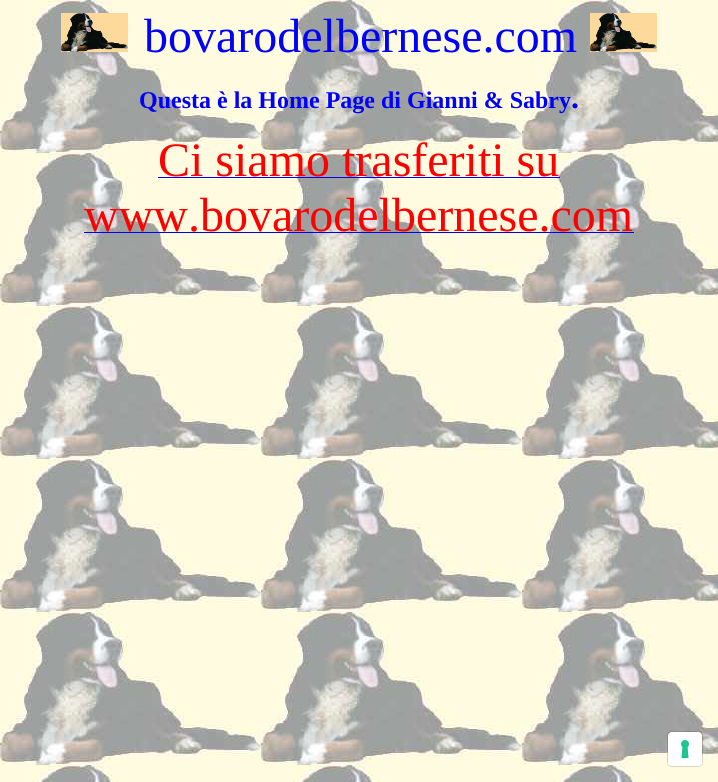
import math
import cairocffi as cairo

surface = cairo.ImageSurface(cairo.FORMAT_RGB24, 718, 782)
cr = cairo.Context(surface)
options = cairo.FontOptions()
options.set_hint_metrics(cairo.HINT_METRICS_OFF)
options.set_hint_style(cairo.HINT_STYLE_NONE)
cr.set_font_options(options)
cr.set_miter_limit(4)


def use_color(code):
    cr.set_source_rgb(*(v / 255 for v in bytes.fromhex(code[-6:])))


def round_rect(x, y, w, h, r):
    cr.new_sub_path()
    for i, (u, v) in enumerate([(x + w - r, y + h - r), (x + r, y + h - r), (x + r, y + r), (x + w - r, y + r)]):
        cr.arc(u, v, r, i * math.pi / 2, (i + 1) * math.pi / 2)
    cr.close_path()


def picture(path, x, y, w, h):
    cr.save()
    cr.set_source_surface(cairo.ImageSurface.create_from_png(path), x, y)
    cr.rectangle(x, y, w, h)
    cr.fill()
    cr.restore()


use_color("#ffffff")
cr.paint()
picture("img1.png", 0, 0, 718, 782)
picture("img2.png", 61, 13, 67, 39)
cr.select_font_face("Liberation Serif")
cr.set_font_size(48)
use_color("#0000ff")
cr.move_to(144, 52)
cr.show_text("bovarodelbernese.com")
picture("img3.png", 590, 13, 67, 39)
cr.select_font_face("Liberation Serif", cairo.FONT_SLANT_NORMAL, cairo.FONT_WEIGHT_BOLD)
cr.set_font_size(24)
cr.move_to(139, 108)
cr.show_text("Questa è la Home Page di Gianni & Sabry")
cr.set_font_size(32)
cr.move_to(571, 108)
cr.show_text(".")
cr.select_font_face("Liberation Serif")
cr.set_font_size(48)
use_color("#ff0000")
cr.move_to(158, 176)
cr.show_text("Ci siamo trasferiti su")
use_color("#0000ee")
cr.rectangle(158, 177, 402, 1)
cr.fill()
use_color("#ff0000")
cr.move_to(84, 231)
cr.show_text("www.bovarodelbernese.com")
use_color("#0000ee")
cr.rectangle(84, 232, 550, 1)
cr.fill()
round_rect(667.5, 731.5, 35, 35, 4.5)
cr.set_source_rgba(0, 0, 0, 0.15)
cr.set_line_width(1)
cr.stroke()
use_color("#ffffff")
round_rect(668, 732, 34, 34, 4)
cr.fill()
picture("img4.png", 681, 740, 8, 18)
surface.write_to_png("result.png")
